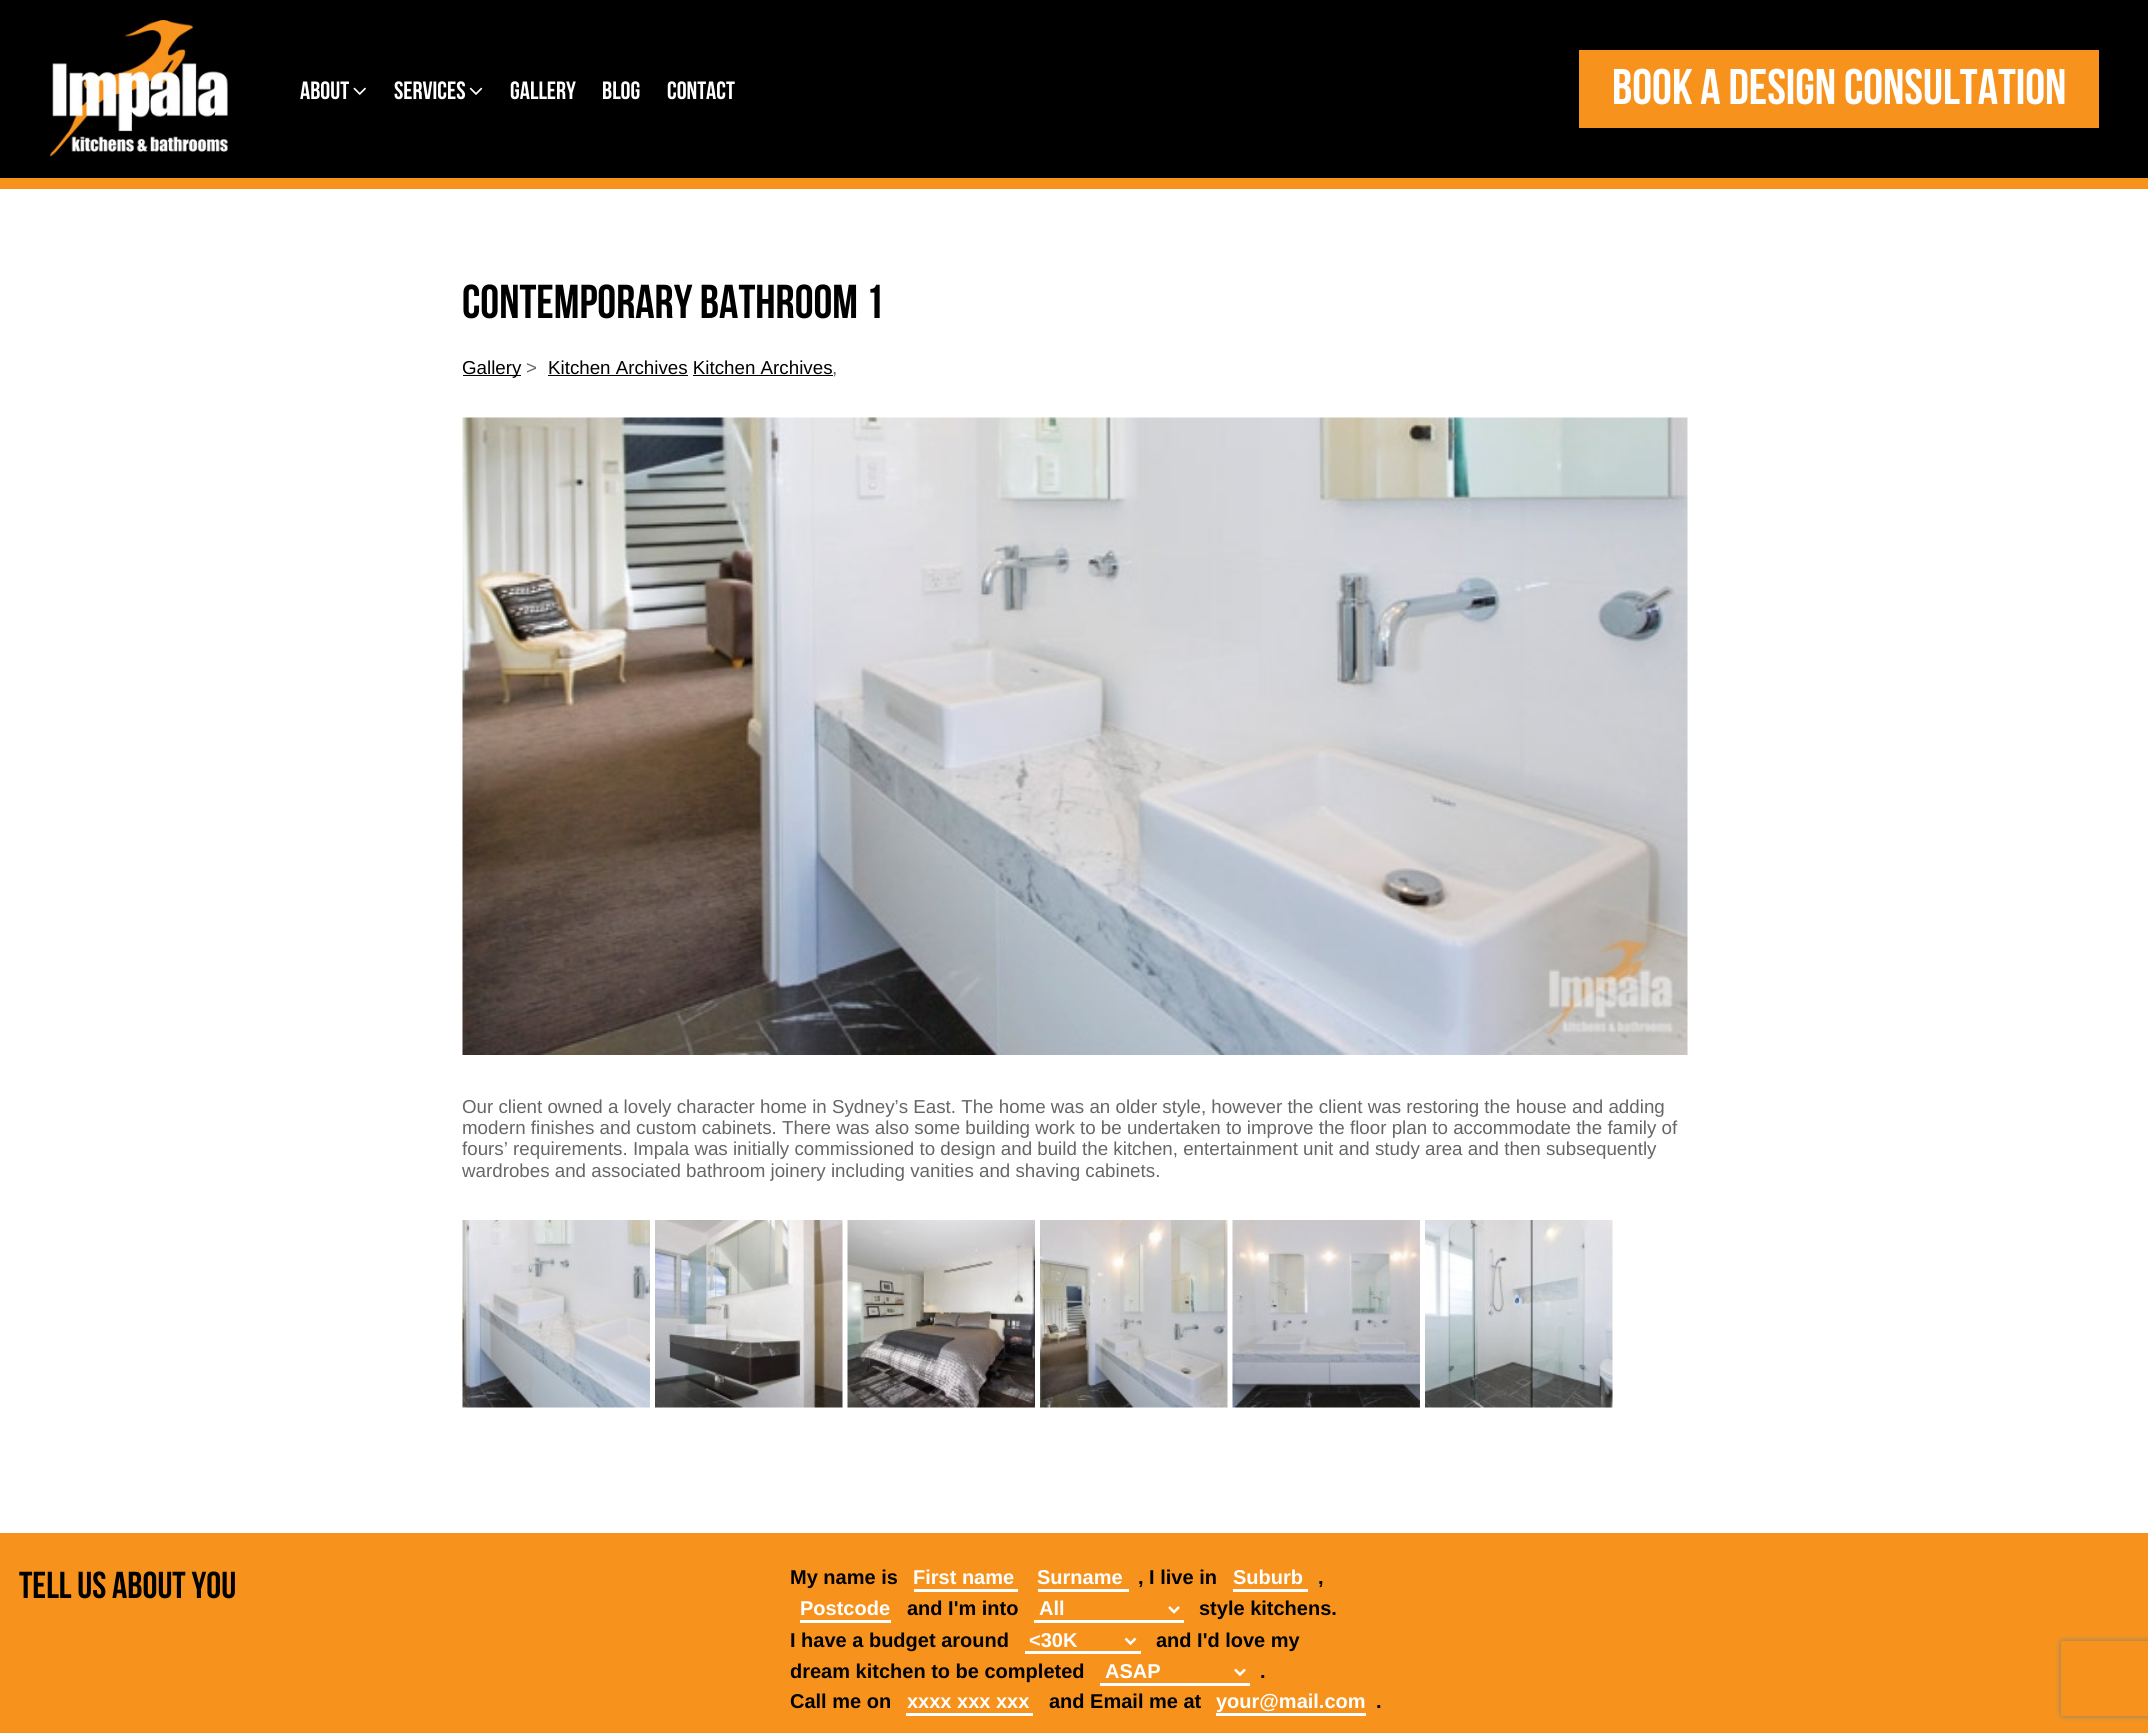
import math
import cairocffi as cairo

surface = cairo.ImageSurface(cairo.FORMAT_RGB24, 2148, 1733)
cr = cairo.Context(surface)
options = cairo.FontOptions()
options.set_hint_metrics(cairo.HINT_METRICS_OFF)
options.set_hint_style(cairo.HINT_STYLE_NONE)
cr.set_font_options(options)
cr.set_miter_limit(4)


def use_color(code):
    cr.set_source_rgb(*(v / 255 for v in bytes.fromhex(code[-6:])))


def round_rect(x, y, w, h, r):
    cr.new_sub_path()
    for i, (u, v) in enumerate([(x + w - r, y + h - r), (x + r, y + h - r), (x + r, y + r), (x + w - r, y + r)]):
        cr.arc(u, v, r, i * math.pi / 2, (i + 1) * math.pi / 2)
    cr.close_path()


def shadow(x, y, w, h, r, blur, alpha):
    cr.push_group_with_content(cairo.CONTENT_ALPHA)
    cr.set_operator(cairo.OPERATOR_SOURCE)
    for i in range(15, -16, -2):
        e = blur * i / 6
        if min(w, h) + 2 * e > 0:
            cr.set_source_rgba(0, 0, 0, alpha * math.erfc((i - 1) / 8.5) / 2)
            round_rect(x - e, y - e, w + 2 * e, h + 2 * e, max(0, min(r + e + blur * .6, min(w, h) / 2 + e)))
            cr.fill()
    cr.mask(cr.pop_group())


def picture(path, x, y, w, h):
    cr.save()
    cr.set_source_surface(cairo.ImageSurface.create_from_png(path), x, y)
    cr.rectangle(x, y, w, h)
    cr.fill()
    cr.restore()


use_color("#000000")
cr.paint()
use_color("#f7931d")
cr.rectangle(0, 178, 2148, 11)
cr.fill()
picture("img1.png", 50, 20, 178, 137)
cr.select_font_face("Bebas Neue")
cr.set_font_size(25)
use_color("#ffffff")
cr.move_to(300, 99)
cr.show_text("About")
picture("img2.png", 353, 87, 13, 8)
cr.move_to(394, 99)
cr.show_text("Services")
picture("img3.png", 469, 87, 14, 8)
cr.move_to(510, 99)
cr.show_text("Gallery")
cr.move_to(602, 99)
cr.show_text("Blog")
cr.move_to(667, 99)
cr.show_text("Contact")
use_color("#f7931d")
cr.rectangle(1579, 50, 520, 78)
cr.fill()
cr.set_font_size(50)
use_color("#ffffff")
cr.move_to(1612, 104)
cr.show_text("BOOK A DESIGN CONSULTATION")
cr.rectangle(0, 189, 2148, 1344)
cr.fill()
cr.set_font_size(47.5)
use_color("#000000")
cr.move_to(462, 318)
cr.show_text("CONTEMPORARY BATHROOM 1")
cr.rectangle(463, 375, 58, 1)
cr.fill()
cr.select_font_face("Liberation Sans")
cr.set_font_size(18.75)
cr.move_to(462, 374)
cr.show_text("Gallery")
use_color("#666666")
cr.move_to(526, 374)
cr.show_text(">")
use_color("#000000")
cr.move_to(548, 374)
cr.show_text("Kitchen Archives Kitchen Archives")
cr.rectangle(548, 375, 140, 1)
cr.fill()
cr.rectangle(693, 375, 140, 1)
cr.fill()
use_color("#666666")
cr.move_to(832, 374)
cr.show_text(",")
picture("img4.png", 462, 417, 1226, 638)
cr.move_to(462, 1113)
cr.show_text("Our client owned a lovely character home in Sydney’s East. The home was an older style, however the client was restoring the house and adding")
cr.move_to(462, 1134)
cr.show_text("modern finishes and custom cabinets. There was also some building work to be undertaken to improve the floor plan to accommodate the family of")
cr.move_to(462, 1155)
cr.show_text("fours’ requirements. Impala was initially commissioned to design and build the kitchen, entertainment unit and study area and then subsequently")
cr.move_to(462, 1177)
cr.show_text("wardrobes and associated bathroom joinery including vanities and shaving cabinets.")
picture("img5.png", 462, 1220, 188, 188)
picture("img6.png", 655, 1220, 188, 188)
picture("img7.png", 847, 1220, 188, 188)
picture("img8.png", 1040, 1220, 188, 188)
picture("img9.png", 1232, 1220, 188, 188)
picture("img10.png", 1425, 1220, 188, 188)
use_color("#f7931d")
cr.rectangle(0, 1533, 2148, 200)
cr.fill()
cr.select_font_face("Bebas Neue")
cr.set_font_size(37.5)
use_color("#000000")
cr.move_to(19, 1598)
cr.show_text("TELL US ABOUT YOU")
cr.select_font_face("Liberation Sans", cairo.FONT_SLANT_NORMAL, cairo.FONT_WEIGHT_BOLD)
cr.set_font_size(20)
cr.move_to(790, 1584)
cr.show_text("My name is")
use_color("#ffffff")
cr.rectangle(914, 1589, 104, 3)
cr.fill()
cr.move_to(913, 1584)
cr.show_text("First name")
cr.rectangle(1038, 1589, 91, 3)
cr.fill()
cr.move_to(1037, 1584)
cr.show_text("Surname")
use_color("#000000")
cr.move_to(1138, 1584)
cr.show_text(", I live in")
use_color("#ffffff")
cr.rectangle(1233, 1589, 75, 3)
cr.fill()
cr.move_to(1233, 1584)
cr.show_text("Suburb")
use_color("#000000")
cr.move_to(1318, 1584)
cr.show_text(",")
use_color("#ffffff")
cr.rectangle(800, 1620, 91, 3)
cr.fill()
cr.move_to(800, 1615)
cr.show_text("Postcode")
use_color("#000000")
cr.move_to(907, 1615)
cr.show_text("and I'm into")
use_color("#ffffff")
cr.rectangle(1034, 1620, 150, 3)
cr.fill()
cr.new_path()
cr.move_to(1169, 1607)
cr.line_to(1174, 1612)
cr.line_to(1179, 1607)
cr.set_line_width(2.5)
cr.stroke()
cr.move_to(1039, 1615)
cr.show_text("All")
use_color("#000000")
cr.move_to(1199, 1615)
cr.show_text("style kitchens.")
cr.move_to(790, 1647)
cr.show_text("I have a budget around")
use_color("#ffffff")
cr.rectangle(1025, 1651, 116, 3)
cr.fill()
cr.new_path()
cr.move_to(1125.5, 1638.5)
cr.line_to(1130.5, 1643.5)
cr.line_to(1135.5, 1638.5)
cr.stroke()
cr.move_to(1029, 1647)
cr.show_text("<30K")
use_color("#000000")
cr.move_to(1156, 1647)
cr.show_text("and I'd love my")
cr.move_to(790, 1678)
cr.show_text("dream kitchen to be completed")
use_color("#ffffff")
cr.rectangle(1100, 1683, 150, 3)
cr.fill()
cr.new_path()
cr.move_to(1235, 1669.5)
cr.line_to(1240, 1674.5)
cr.line_to(1245, 1669.5)
cr.stroke()
cr.move_to(1105, 1678)
cr.show_text("ASAP")
use_color("#000000")
cr.move_to(1260, 1678)
cr.show_text(".")
cr.move_to(790, 1708)
cr.show_text("Call me on")
use_color("#ffffff")
cr.rectangle(906, 1713, 127, 3)
cr.fill()
cr.move_to(907, 1708)
cr.show_text("xxxx xxx xxx")
use_color("#000000")
cr.move_to(1049, 1708)
cr.show_text("and Email me at")
use_color("#ffffff")
cr.rectangle(1216, 1713, 150, 3)
cr.fill()
cr.move_to(1216, 1708)
cr.show_text("your@mail.com")
use_color("#000000")
cr.move_to(1376, 1708)
cr.show_text(".")
cr.save()
cr.set_fill_rule(cairo.FILL_RULE_EVEN_ODD)
cr.new_path()
cr.move_to(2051, 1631)
cr.line_to(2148, 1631)
cr.line_to(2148, 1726)
cr.line_to(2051, 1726)
cr.close_path()
cr.move_to(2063.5, 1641)
cr.line_to(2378.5, 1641)
cr.curve_to(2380, 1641, 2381, 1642, 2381, 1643.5)
cr.line_to(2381, 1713.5)
cr.curve_to(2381, 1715, 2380, 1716, 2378.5, 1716)
cr.line_to(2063.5, 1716)
cr.curve_to(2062, 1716, 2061, 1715, 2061, 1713.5)
cr.line_to(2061, 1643.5)
cr.curve_to(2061, 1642, 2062, 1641, 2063.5, 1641)
cr.close_path()
cr.clip()
use_color("#808080")
shadow(2061, 1641, 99, 75, 2.5, 3, 1)
cr.restore()
surface.write_to_png("result.png")
